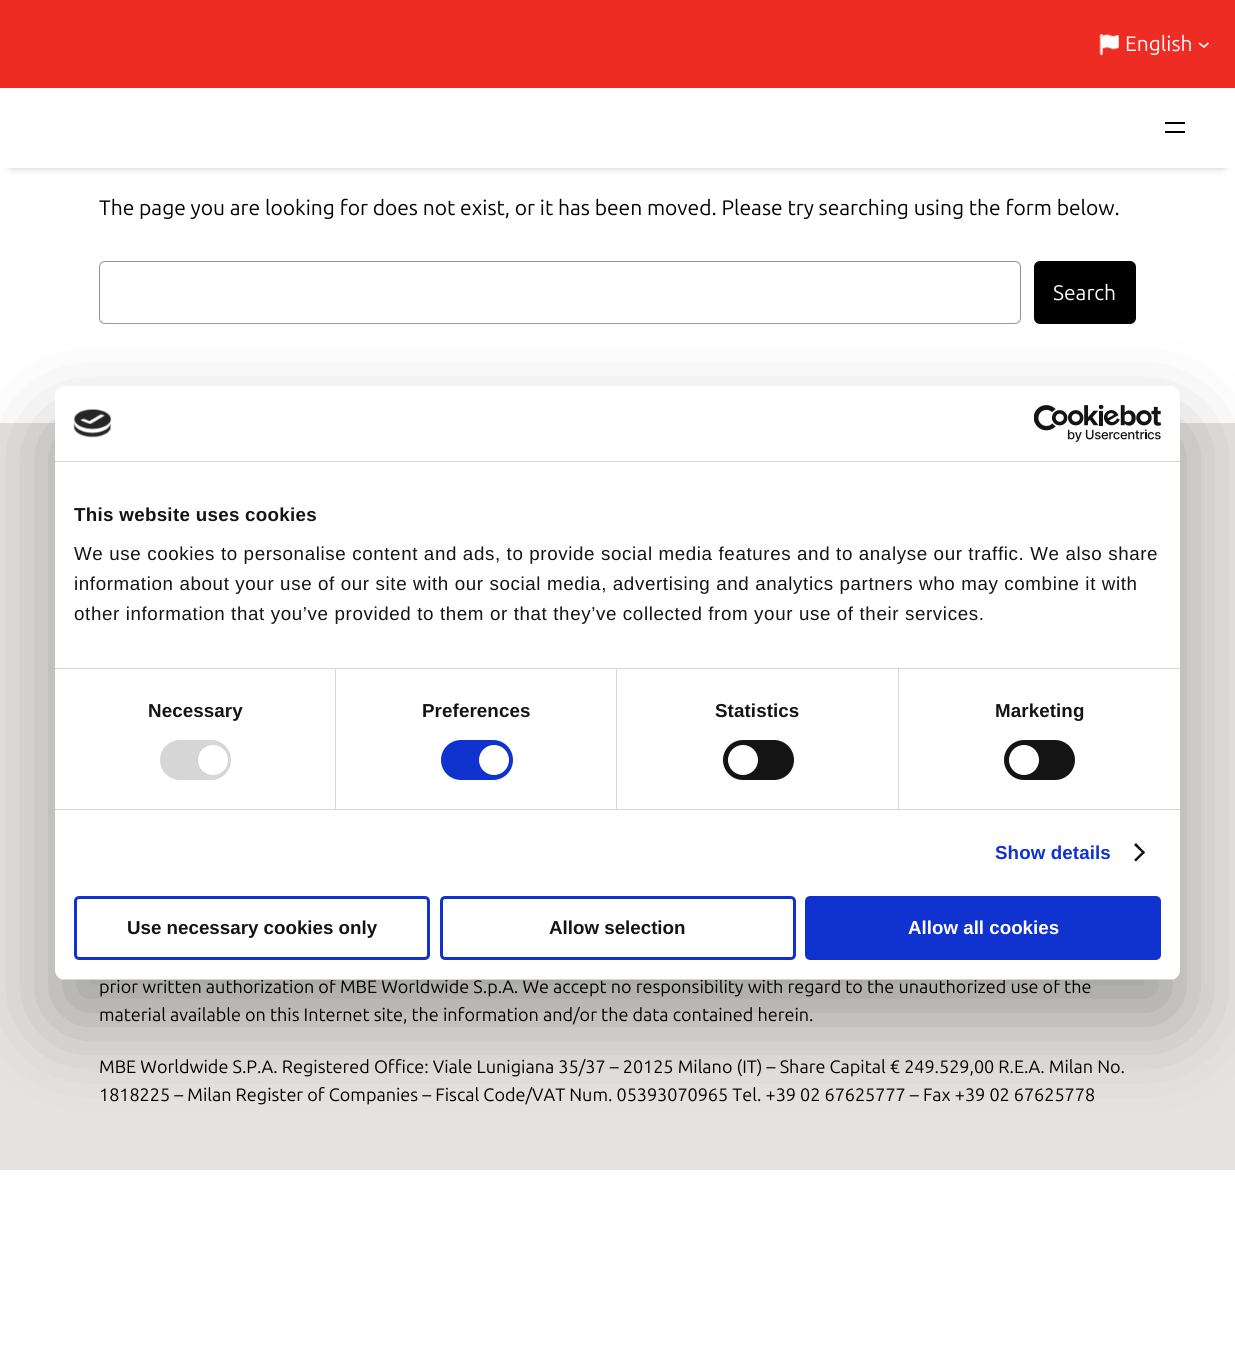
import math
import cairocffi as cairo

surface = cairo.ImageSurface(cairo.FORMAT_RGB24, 1235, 1364)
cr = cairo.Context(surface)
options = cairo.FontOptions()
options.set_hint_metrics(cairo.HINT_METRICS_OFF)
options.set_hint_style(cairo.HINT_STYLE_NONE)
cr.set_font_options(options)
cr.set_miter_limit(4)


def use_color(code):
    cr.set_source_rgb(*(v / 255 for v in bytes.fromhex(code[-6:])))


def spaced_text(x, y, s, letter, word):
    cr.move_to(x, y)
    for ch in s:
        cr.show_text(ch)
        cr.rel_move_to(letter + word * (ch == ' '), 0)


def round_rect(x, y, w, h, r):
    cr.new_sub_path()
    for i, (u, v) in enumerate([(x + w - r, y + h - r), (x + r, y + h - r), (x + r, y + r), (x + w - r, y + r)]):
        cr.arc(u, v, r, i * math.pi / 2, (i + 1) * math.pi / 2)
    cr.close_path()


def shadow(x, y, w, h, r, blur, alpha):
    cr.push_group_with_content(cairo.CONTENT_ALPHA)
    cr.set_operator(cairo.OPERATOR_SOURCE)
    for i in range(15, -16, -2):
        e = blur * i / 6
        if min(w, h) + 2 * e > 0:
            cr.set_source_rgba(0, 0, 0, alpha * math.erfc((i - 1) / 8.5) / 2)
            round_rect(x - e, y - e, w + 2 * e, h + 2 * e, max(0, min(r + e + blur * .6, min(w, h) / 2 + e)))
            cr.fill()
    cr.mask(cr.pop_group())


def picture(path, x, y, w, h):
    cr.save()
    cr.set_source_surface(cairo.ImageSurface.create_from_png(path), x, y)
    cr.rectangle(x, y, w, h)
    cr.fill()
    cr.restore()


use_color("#ffffff")
cr.paint()
use_color("#000000")
shadow(13, 19, 1210, 142, 0, 6, 1)
use_color("#ee2c24")
cr.rectangle(0, 0, 1235, 88)
cr.fill()
picture("img1.png", 1099, 34, 20, 22)
cr.select_font_face("Ubuntu")
cr.set_font_size(21)
use_color("#ffffff")
cr.move_to(1125, 51)
cr.show_text("English")
cr.new_path()
cr.move_to(1199, 43)
cr.line_to(1204, 47)
cr.line_to(1208.5, 43)
cr.set_line_width(1.6)
cr.stroke()
cr.rectangle(0, 88, 1235, 80)
cr.fill()
use_color("#000000")
cr.rectangle(1165, 122, 20, 2)
cr.fill()
cr.rectangle(1165, 131, 20, 2)
cr.fill()
cr.move_to(99, 215)
cr.show_text("The page you are looking for does not exist, or it has been moved. Please try searching using the form below.")
round_rect(99.5, 261.5, 921, 62, 5.5)
use_color("#949494")
cr.set_line_width(1)
cr.stroke()
use_color("#000000")
round_rect(1034, 261, 102, 63, 6)
cr.fill()
use_color("#ffffff")
cr.move_to(1053, 300)
cr.show_text("Search")
use_color("#e5e3df")
cr.rectangle(0, 423, 1235, 747)
cr.fill()
cr.set_font_size(18)
use_color("#000000")
cr.move_to(99, 993)
cr.show_text("prior written authorization of MBE Worldwide S.p.A. We accept no responsibility with regard to the unauthorized use of the")
cr.move_to(99, 1021)
cr.show_text("material available on this Internet site, the information and/or the data contained herein.")
cr.move_to(99, 1073)
cr.show_text("MBE Worldwide S.P.A. Registered Office: Viale Lunigiana 35/37 – 20125 Milano (IT) – Share Capital € 249.529,00 R.E.A. Milan No.")
cr.move_to(99, 1101)
cr.show_text("1818225 – Milan Register of Companies – Fiscal Code/VAT Num. 05393070965 Tel. +39 02 67625777 – Fax +39 02 67625778")
use_color("#000000")
shadow(55, 426, 1125, 594, 10, 42.5, 0.3)
use_color("#ffffff")
round_rect(55, 386, 1125, 594, 10)
cr.fill()
use_color("#d6d6d6")
cr.rectangle(55, 461, 1125, 1)
cr.fill()
picture("img2.png", 73, 409, 39, 29)
picture("img3.png", 1034, 405, 127, 37)
cr.rectangle(55, 668, 1125, 1)
cr.fill()
cr.select_font_face("Liberation Sans", cairo.FONT_SLANT_NORMAL, cairo.FONT_WEIGHT_BOLD)
cr.set_font_size(18.75)
use_color("#141414")
spaced_text(74, 521, "This website uses cookies", 0.3, 0)
cr.select_font_face("Liberation Sans")
spaced_text(74, 560, "We use cookies to personalise content and ads, to provide social media features and to analyse our traffic. We also share", 0.62, 0)
spaced_text(74, 590, "information about your use of our site with our social media, advertising and analytics partners who may combine it with", 0.62, 0)
spaced_text(74, 620, "other information that you’ve provided to them or that they’ve collected from your use of their services.", 0.62, 0)
use_color("#d6d6d6")
cr.rectangle(55, 809, 1125, 1)
cr.fill()
cr.rectangle(335, 669, 1, 140)
cr.fill()
cr.select_font_face("Liberation Sans", cairo.FONT_SLANT_NORMAL, cairo.FONT_WEIGHT_BOLD)
use_color("#141414")
spaced_text(148, 717, "Necessary", 0.1, 0)
use_color("#d6d6d6")
round_rect(160, 740, 71, 40, 20)
cr.fill()
use_color("#ffffff")
cr.arc(213, 760, 15, 0, 2 * math.pi)
cr.fill()
use_color("#d6d6d6")
cr.rectangle(616, 669, 1, 140)
cr.fill()
use_color("#141414")
spaced_text(422, 717, "Preferences", 0.1, 0)
use_color("#1032cf")
round_rect(441, 740, 72, 40, 20)
cr.fill()
use_color("#ffffff")
cr.arc(494, 760, 15, 0, 2 * math.pi)
cr.fill()
use_color("#d6d6d6")
cr.rectangle(898, 669, 1, 140)
cr.fill()
use_color("#141414")
spaced_text(715, 717, "Statistics", 0.1, 0)
round_rect(723, 740, 71, 40, 20)
cr.fill()
use_color("#ffffff")
cr.arc(743, 760, 15, 0, 2 * math.pi)
cr.fill()
use_color("#141414")
spaced_text(995, 717, "Marketing", 0.1, 0)
round_rect(1004, 740, 71, 40, 20)
cr.fill()
use_color("#ffffff")
cr.arc(1024, 760, 15, 0, 2 * math.pi)
cr.fill()
use_color("#1032cf")
spaced_text(995, 859, "Show details", 0.1, 0)
use_color("#141414")
cr.new_path()
cr.move_to(1136, 843)
cr.line_to(1145, 852.5)
cr.line_to(1143.5, 854)
cr.line_to(1134, 845)
cr.close_path()
cr.fill()
cr.new_path()
cr.move_to(1143.5, 850.5)
cr.line_to(1145, 852.5)
cr.line_to(1136, 861.5)
cr.line_to(1134, 860)
cr.close_path()
cr.fill()
cr.save()
round_rect(55, 386, 1125, 594, 10)
cr.clip()
use_color("#d6d6d6")
cr.rectangle(55, 979, 1125, 1)
cr.fill()
cr.restore()
round_rect(75.5, 897.5, 353, 61, 3.5)
use_color("#1032cf")
cr.set_line_width(3)
cr.stroke()
use_color("#141414")
cr.move_to(127, 934)
cr.show_text("Use necessary cookies only")
round_rect(441.5, 897.5, 353, 61, 3.5)
use_color("#1032cf")
cr.stroke()
use_color("#141414")
cr.move_to(549, 934)
cr.show_text("Allow selection")
use_color("#1032cf")
round_rect(806.5, 897.5, 353, 61, 3.5)
cr.fill_preserve()
cr.stroke()
use_color("#ffffff")
cr.move_to(908, 934)
cr.show_text("Allow all cookies")
surface.write_to_png("result.png")
